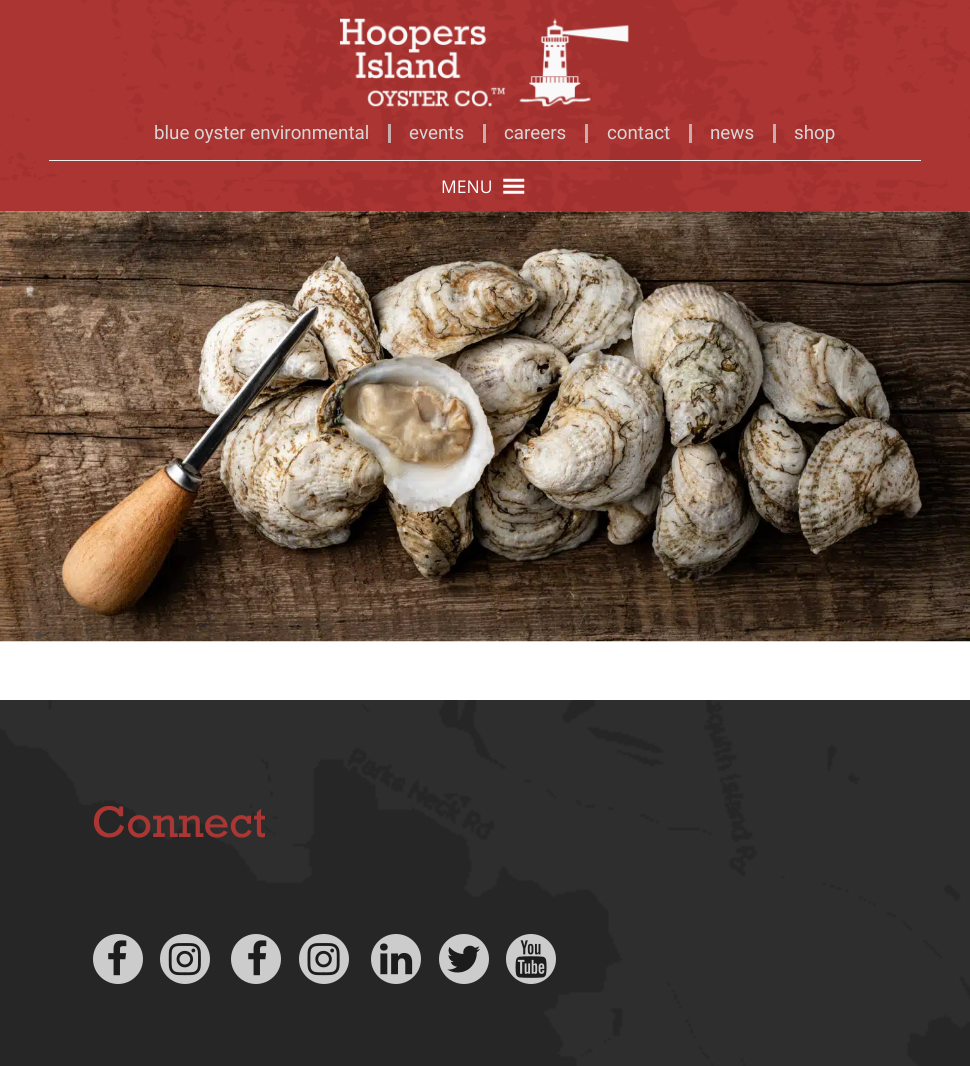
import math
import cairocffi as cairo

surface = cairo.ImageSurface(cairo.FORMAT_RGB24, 970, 1066)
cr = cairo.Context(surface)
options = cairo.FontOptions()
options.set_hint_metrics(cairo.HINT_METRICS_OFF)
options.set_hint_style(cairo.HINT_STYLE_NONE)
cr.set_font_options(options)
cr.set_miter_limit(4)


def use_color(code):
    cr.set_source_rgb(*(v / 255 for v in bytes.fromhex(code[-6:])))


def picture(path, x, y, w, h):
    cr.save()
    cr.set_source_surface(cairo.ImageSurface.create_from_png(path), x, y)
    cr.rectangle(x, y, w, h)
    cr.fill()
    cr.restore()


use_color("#ffffff")
cr.paint()
picture("img1.png", 0, 0, 970, 212)
picture("img2.png", 340, 18, 289, 89)
use_color("#c9acab")
cr.rectangle(388, 124, 3, 19)
cr.fill()
cr.select_font_face("Roboto")
cr.set_font_size(18.75)
use_color("#d7d6d6")
cr.move_to(154, 139)
cr.show_text("blue oyster environmental")
use_color("#c9acab")
cr.rectangle(483, 124, 3, 19)
cr.fill()
use_color("#d7d6d6")
cr.move_to(409, 139)
cr.show_text("events")
use_color("#c9acab")
cr.rectangle(585, 124, 3, 19)
cr.fill()
use_color("#d7d6d6")
cr.move_to(504, 139)
cr.show_text("careers")
use_color("#c9acab")
cr.rectangle(689, 124, 3, 19)
cr.fill()
use_color("#d7d6d6")
cr.move_to(607, 139)
cr.show_text("contact")
use_color("#c9acab")
cr.rectangle(773, 124, 3, 19)
cr.fill()
use_color("#d7d6d6")
cr.move_to(710, 139)
cr.show_text("news")
cr.move_to(794, 139)
cr.show_text("shop")
use_color("#eeeeee")
cr.rectangle(49, 160, 872, 1)
cr.fill()
cr.select_font_face("Open Sans")
cr.set_font_size(17.5)
use_color("#ffffff")
cr.move_to(441, 193)
cr.show_text("MENU")
picture("img3.png", 503, 178, 22, 16)
picture("img4.png", 0, 211, 970, 431)
picture("img5.png", 0, 700, 970, 366)
cr.select_font_face("Rockwell")
cr.set_font_size(45)
use_color("#ab3734")
cr.move_to(92, 837)
cr.show_text("Connect")
use_color("#cccccc")
cr.new_path()
cr.arc(118, 959, 25, 0, 2 * math.pi)
cr.fill()
picture("img6.png", 108, 940, 19, 36)
cr.arc(185, 959, 25, 0, 2 * math.pi)
cr.fill()
picture("img7.png", 168, 943, 33, 33)
cr.arc(256, 959, 25, 0, 2 * math.pi)
cr.fill()
picture("img6.png", 248, 940, 19, 36)
cr.arc(324, 959, 25, 0, 2 * math.pi)
cr.fill()
picture("img8.png", 307, 943, 33, 33)
cr.arc(396, 959, 25, 0, 2 * math.pi)
cr.fill()
picture("img9.png", 380, 943, 33, 32)
cr.arc(464, 959, 25, 0, 2 * math.pi)
cr.fill()
picture("img10.png", 447, 945, 33, 28)
cr.arc(531, 959, 25, 0, 2 * math.pi)
cr.fill()
picture("img11.png", 515, 940, 32, 38)
surface.write_to_png("result.png")
